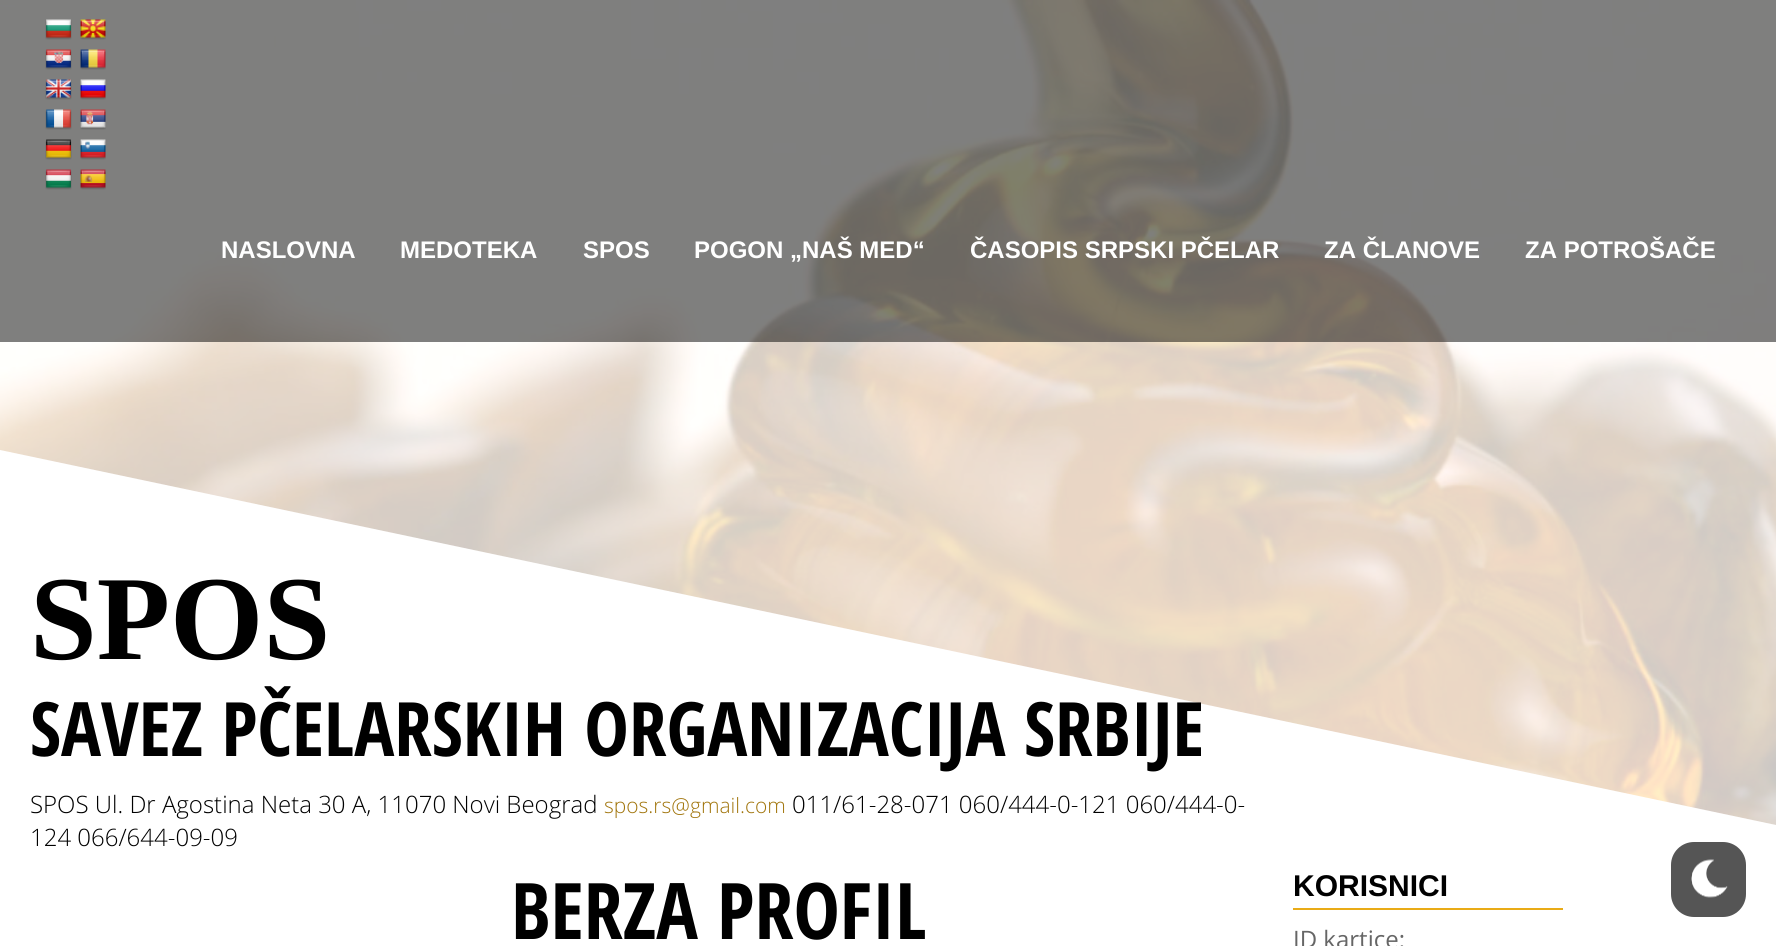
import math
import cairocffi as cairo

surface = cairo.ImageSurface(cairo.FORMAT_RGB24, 1776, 946)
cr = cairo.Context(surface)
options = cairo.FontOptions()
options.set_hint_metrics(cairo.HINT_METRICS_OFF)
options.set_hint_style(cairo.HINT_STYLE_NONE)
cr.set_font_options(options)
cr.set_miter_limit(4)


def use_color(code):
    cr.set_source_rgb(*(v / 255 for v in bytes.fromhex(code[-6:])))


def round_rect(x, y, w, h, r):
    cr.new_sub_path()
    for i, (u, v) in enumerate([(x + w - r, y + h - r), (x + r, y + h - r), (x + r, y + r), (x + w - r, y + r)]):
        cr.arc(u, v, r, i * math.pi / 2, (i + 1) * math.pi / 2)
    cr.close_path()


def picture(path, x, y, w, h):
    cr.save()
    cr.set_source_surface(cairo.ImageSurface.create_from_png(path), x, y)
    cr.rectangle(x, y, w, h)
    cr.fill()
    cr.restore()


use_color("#ffffff")
cr.paint()
picture("img1.png", 0, 0, 1776, 825)
cr.set_source_rgba(0, 0, 0, 0.5)
cr.rectangle(0, 0, 1776, 342)
cr.fill()
picture("img2.png", 45, 19, 27, 21)
picture("img3.png", 80, 19, 26, 21)
picture("img4.png", 45, 49, 27, 21)
picture("img5.png", 80, 49, 26, 21)
picture("img6.png", 45, 79, 27, 21)
picture("img7.png", 80, 79, 26, 21)
picture("img8.png", 45, 109, 27, 21)
picture("img9.png", 80, 109, 26, 21)
picture("img10.png", 45, 139, 27, 21)
picture("img11.png", 80, 139, 26, 21)
picture("img12.png", 45, 169, 27, 21)
picture("img13.png", 80, 169, 26, 21)
cr.select_font_face("Liberation Sans", cairo.FONT_SLANT_NORMAL, cairo.FONT_WEIGHT_BOLD)
cr.set_font_size(24)
use_color("#ffffff")
cr.move_to(221, 258)
cr.show_text("NASLOVNA")
cr.move_to(400, 258)
cr.show_text("MEDOTEKA")
cr.move_to(583, 258)
cr.show_text("SPOS")
cr.move_to(694, 258)
cr.show_text("POGON „NAŠ MED“")
cr.move_to(970, 258)
cr.show_text("ČASOPIS SRPSKI PČELAR")
cr.move_to(1324, 258)
cr.show_text("ZA ČLANOVE")
cr.move_to(1525, 258)
cr.show_text("ZA POTROŠAČE")
cr.new_path()
cr.move_to(0, 825)
cr.line_to(0, 450)
cr.line_to(1776, 825)
cr.close_path()
cr.fill()
cr.select_font_face("Liberation Serif", cairo.FONT_SLANT_NORMAL, cairo.FONT_WEIGHT_BOLD)
cr.set_font_size(120)
use_color("#000000")
cr.move_to(30, 659)
cr.show_text("SPOS")
cr.select_font_face("Open Sans Condensed", cairo.FONT_SLANT_NORMAL, cairo.FONT_WEIGHT_BOLD)
cr.set_font_size(75)
cr.move_to(30, 756)
cr.show_text("SAVEZ PČELARSKIH ORGANIZACIJA SRBIJE")
cr.select_font_face("Open Sans Light")
cr.set_font_size(24)
cr.move_to(30, 813)
cr.show_text("SPOS Ul. Dr Agostina Neta 30 A, 11070 Novi Beograd")
cr.set_font_size(21)
use_color("#a1750c")
cr.move_to(604, 813)
cr.show_text("spos.rs@gmail.com")
cr.set_font_size(24)
use_color("#000000")
cr.move_to(792, 813)
cr.show_text("011/61-28-071 060/444-0-121 060/444-0-")
cr.move_to(30, 846)
cr.show_text("124 066/644-09-09")
cr.select_font_face("Open Sans Condensed", cairo.FONT_SLANT_NORMAL, cairo.FONT_WEIGHT_BOLD)
cr.set_font_size(78)
cr.move_to(511, 939)
cr.show_text("BERZA PROFIL")
use_color("#e9ab17")
cr.rectangle(1293, 908, 270, 2)
cr.fill()
cr.select_font_face("Liberation Sans", cairo.FONT_SLANT_NORMAL, cairo.FONT_WEIGHT_BOLD)
cr.set_font_size(30)
use_color("#000000")
cr.move_to(1293, 896)
cr.show_text("KORISNICI")
cr.select_font_face("Open Sans")
cr.set_font_size(24)
use_color("#666666")
cr.move_to(1293, 948)
cr.show_text("ID kartice:")
use_color("#555555")
round_rect(1671, 842, 75, 75, 23)
cr.fill()
picture("img14.png", 1691, 859, 37, 39)
surface.write_to_png("result.png")
